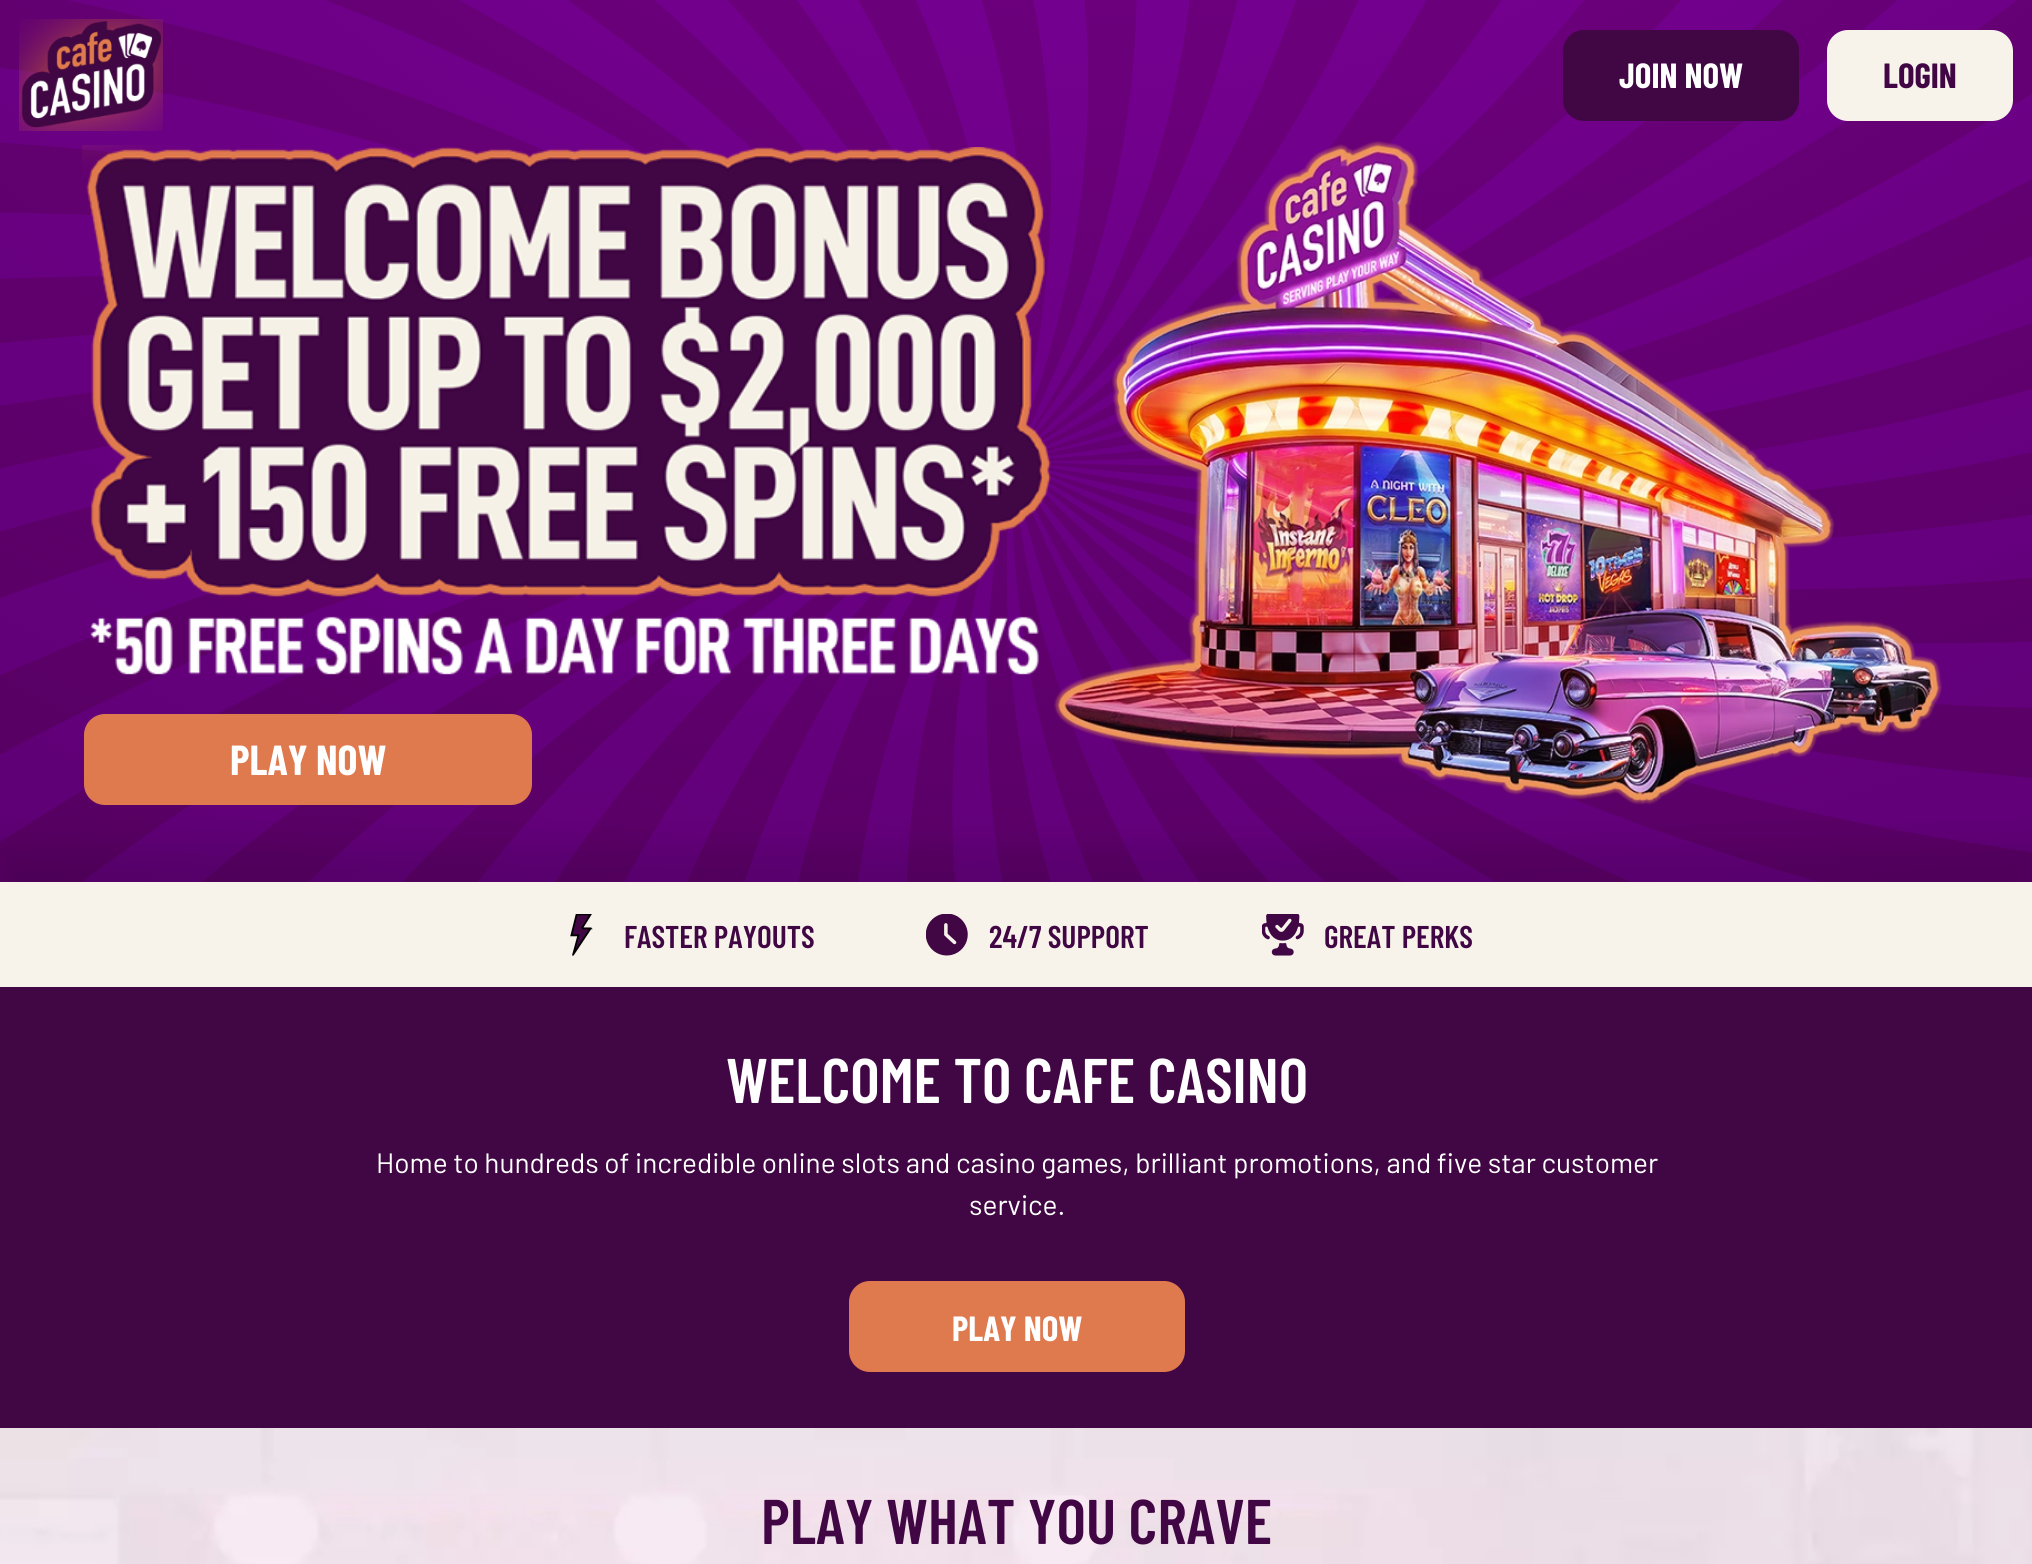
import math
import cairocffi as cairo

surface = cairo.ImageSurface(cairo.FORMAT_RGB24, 2032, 1564)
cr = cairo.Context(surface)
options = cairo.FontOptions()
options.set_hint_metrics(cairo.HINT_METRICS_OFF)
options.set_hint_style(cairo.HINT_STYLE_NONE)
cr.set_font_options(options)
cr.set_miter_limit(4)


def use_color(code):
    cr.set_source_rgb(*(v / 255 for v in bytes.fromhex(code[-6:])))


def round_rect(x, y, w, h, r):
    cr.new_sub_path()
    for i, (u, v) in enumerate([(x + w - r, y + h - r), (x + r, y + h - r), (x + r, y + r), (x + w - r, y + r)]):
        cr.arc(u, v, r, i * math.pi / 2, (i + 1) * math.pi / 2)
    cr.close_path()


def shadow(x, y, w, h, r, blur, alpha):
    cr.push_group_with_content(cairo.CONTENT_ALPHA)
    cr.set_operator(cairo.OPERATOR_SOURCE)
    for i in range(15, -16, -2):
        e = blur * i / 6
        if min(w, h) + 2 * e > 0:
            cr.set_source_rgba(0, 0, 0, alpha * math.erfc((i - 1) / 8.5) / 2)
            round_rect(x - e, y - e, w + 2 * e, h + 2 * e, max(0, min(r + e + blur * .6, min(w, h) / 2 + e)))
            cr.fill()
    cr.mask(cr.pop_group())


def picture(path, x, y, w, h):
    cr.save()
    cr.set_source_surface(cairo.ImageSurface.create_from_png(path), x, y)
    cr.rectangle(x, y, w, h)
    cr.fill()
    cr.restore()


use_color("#410744")
cr.paint()
picture("img2.png", 0, 0, 2032, 882)
picture("img1.png", 19, 19, 144, 112)
use_color("#410744")
round_rect(1563, 30, 236, 91, 21)
cr.fill()
cr.select_font_face("Barlow Condensed", cairo.FONT_SLANT_NORMAL, cairo.FONT_WEIGHT_BOLD)
cr.set_font_size(35)
use_color("#ffffff")
cr.move_to(1619, 88)
cr.show_text("JOIN NOW")
use_color("#f7f3eb")
round_rect(1827, 30, 186, 91, 21)
cr.fill()
use_color("#410744")
cr.move_to(1883, 88)
cr.show_text("LOGIN")
picture("img3.png", 82, 145, 969, 530)
use_color("#df794e")
round_rect(84, 714, 448, 91, 21)
cr.fill()
cr.set_font_size(42)
use_color("#ffffff")
cr.move_to(230, 775)
cr.show_text("PLAY NOW")
picture("img4.png", 1054, 141, 888, 664)
use_color("#000000")
shadow(0, 847, 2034, 105, 0, 17.5, 0.1)
use_color("#f7f3eb")
cr.rectangle(0, 882, 2032, 105)
cr.fill()
picture("img5.png", 570, 914, 23, 42)
cr.select_font_face("Barlow Condensed SemiBold")
cr.set_font_size(31.5)
use_color("#410744")
cr.move_to(624, 948)
cr.show_text("FASTER PAYOUTS")
picture("img6.png", 926, 914, 42, 42)
cr.move_to(989, 948)
cr.show_text("24/7 SUPPORT")
picture("img7.png", 1262, 914, 42, 42)
cr.move_to(1324, 948)
cr.show_text("GREAT PERKS")
cr.set_font_size(63)
use_color("#ffffff")
cr.move_to(726, 1103)
cr.show_text("WELCOME TO CAFE CASINO")
cr.select_font_face("Barlow")
cr.set_font_size(28)
cr.move_to(376, 1173)
cr.show_text("Home to hundreds of incredible online slots and casino games, brilliant promotions, and five star customer")
cr.move_to(969, 1215)
cr.show_text("service.")
use_color("#df794e")
round_rect(849, 1281, 336, 91, 21)
cr.fill()
cr.select_font_face("Barlow Condensed", cairo.FONT_SLANT_NORMAL, cairo.FONT_WEIGHT_BOLD)
cr.set_font_size(35)
use_color("#ffffff")
cr.move_to(952, 1341)
cr.show_text("PLAY NOW")
picture("img8.png", 0, 1428, 2032, 136)
cr.select_font_face("Barlow Condensed SemiBold")
cr.set_font_size(63)
use_color("#410744")
cr.move_to(761, 1544)
cr.show_text("PLAY WHAT YOU CRAVE")
surface.write_to_png("result.png")
